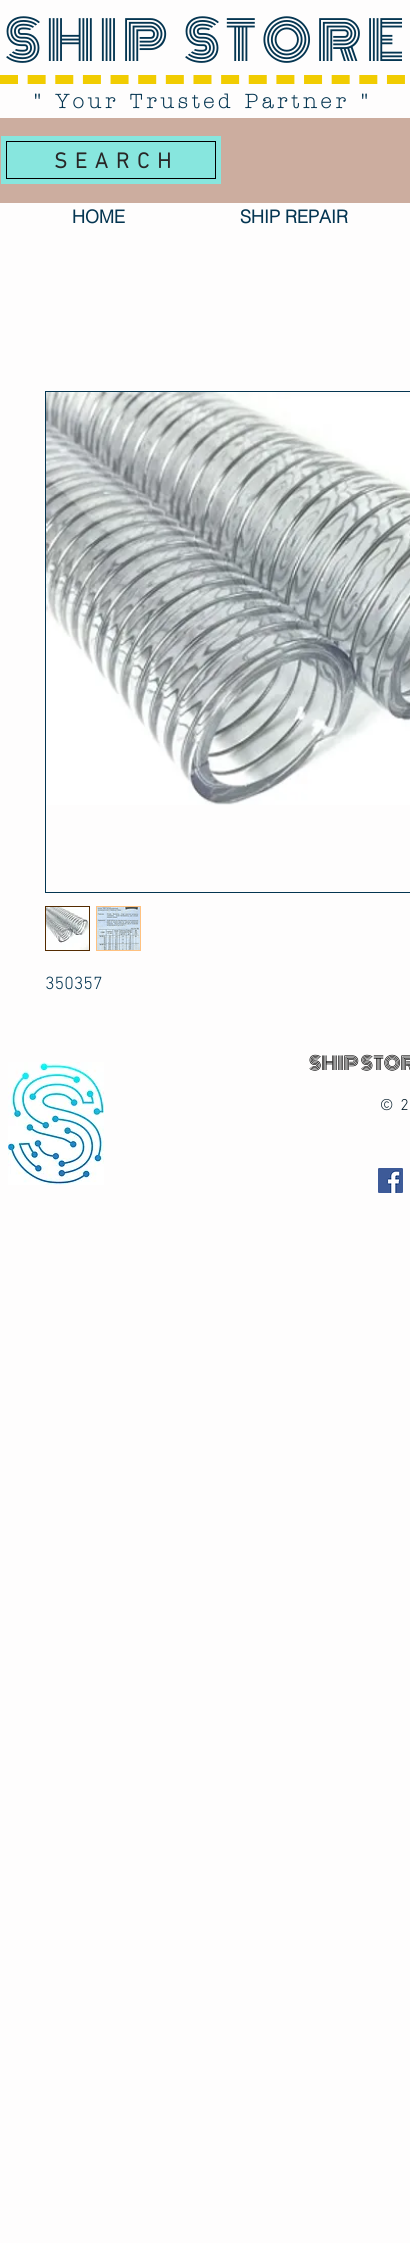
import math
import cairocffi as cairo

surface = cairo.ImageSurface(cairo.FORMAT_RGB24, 410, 2243)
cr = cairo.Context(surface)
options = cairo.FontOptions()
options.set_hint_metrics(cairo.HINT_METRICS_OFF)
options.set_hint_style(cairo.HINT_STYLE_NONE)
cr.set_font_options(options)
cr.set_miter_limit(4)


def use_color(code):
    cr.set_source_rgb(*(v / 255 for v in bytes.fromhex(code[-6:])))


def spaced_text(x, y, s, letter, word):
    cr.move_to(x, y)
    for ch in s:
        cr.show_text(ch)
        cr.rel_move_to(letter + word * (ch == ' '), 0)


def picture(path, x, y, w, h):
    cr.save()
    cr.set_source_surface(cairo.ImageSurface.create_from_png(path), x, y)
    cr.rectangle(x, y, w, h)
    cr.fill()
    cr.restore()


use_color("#fefdfd")
cr.paint()
cr.select_font_face("Monoton")
cr.set_font_size(53)
use_color("#043551")
spaced_text(5, 61, "SHIP STORE", 5.25, 0)
cr.new_path()
cr.move_to(0, 79.5)
cr.line_to(405, 79.5)
use_color("#f1cc01")
cr.set_line_width(9)
cr.set_dash([18, 9.64])
cr.stroke()
cr.select_font_face("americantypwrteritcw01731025", cairo.FONT_SLANT_NORMAL, cairo.FONT_WEIGHT_BOLD)
cr.set_font_size(20)
use_color("#043551")
spaced_text(33, 108, "\" Your Trusted Partner \"", 4, 0)
use_color("#ccad9f")
cr.rectangle(0, 118, 410, 85)
cr.fill()
use_color("#87e6de")
cr.rectangle(1, 136, 220, 48)
cr.fill()
cr.rectangle(6.5, 141.5, 209, 37)
use_color("#000000")
cr.set_line_width(1)
cr.set_dash([])
cr.stroke()
cr.select_font_face("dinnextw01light", cairo.FONT_SLANT_NORMAL, cairo.FONT_WEIGHT_BOLD)
cr.set_font_size(22)
use_color("#282626")
spaced_text(54, 168, "SEARCH", 7.75, 0)
cr.select_font_face("helvetica", cairo.FONT_SLANT_NORMAL, cairo.FONT_WEIGHT_BOLD)
cr.set_font_size(18)
use_color("#043551")
cr.move_to(72, 223)
cr.show_text("HOME")
cr.move_to(240, 223)
cr.show_text("SHIP REPAIR")
cr.rectangle(45.5, 391.5, 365, 501)
cr.stroke()
picture("img1.png", 46, 392, 364, 413)
cr.rectangle(45.5, 906.5, 44, 44)
use_color("#542b00")
cr.stroke()
picture("img2.png", 46, 907, 43, 43)
use_color("#ffc17f")
cr.rectangle(96, 906, 45, 45)
cr.fill()
picture("img3.png", 97, 907, 43, 43)
cr.select_font_face("dinnextw01light Light")
use_color("#043551")
cr.move_to(45, 989)
cr.show_text("350357")
picture("img4.png", 8, 1062, 96, 123)
cr.select_font_face("Monoton")
use_color("#000000")
cr.move_to(309, 1070)
cr.show_text("SHIP STOR")
cr.select_font_face("dinnextw01light Light")
cr.set_font_size(16)
use_color("#021a28")
spaced_text(380, 1110, "© 2", 1.5, 0)
picture("img5.png", 378, 1168, 25, 25)
surface.write_to_png("result.png")
